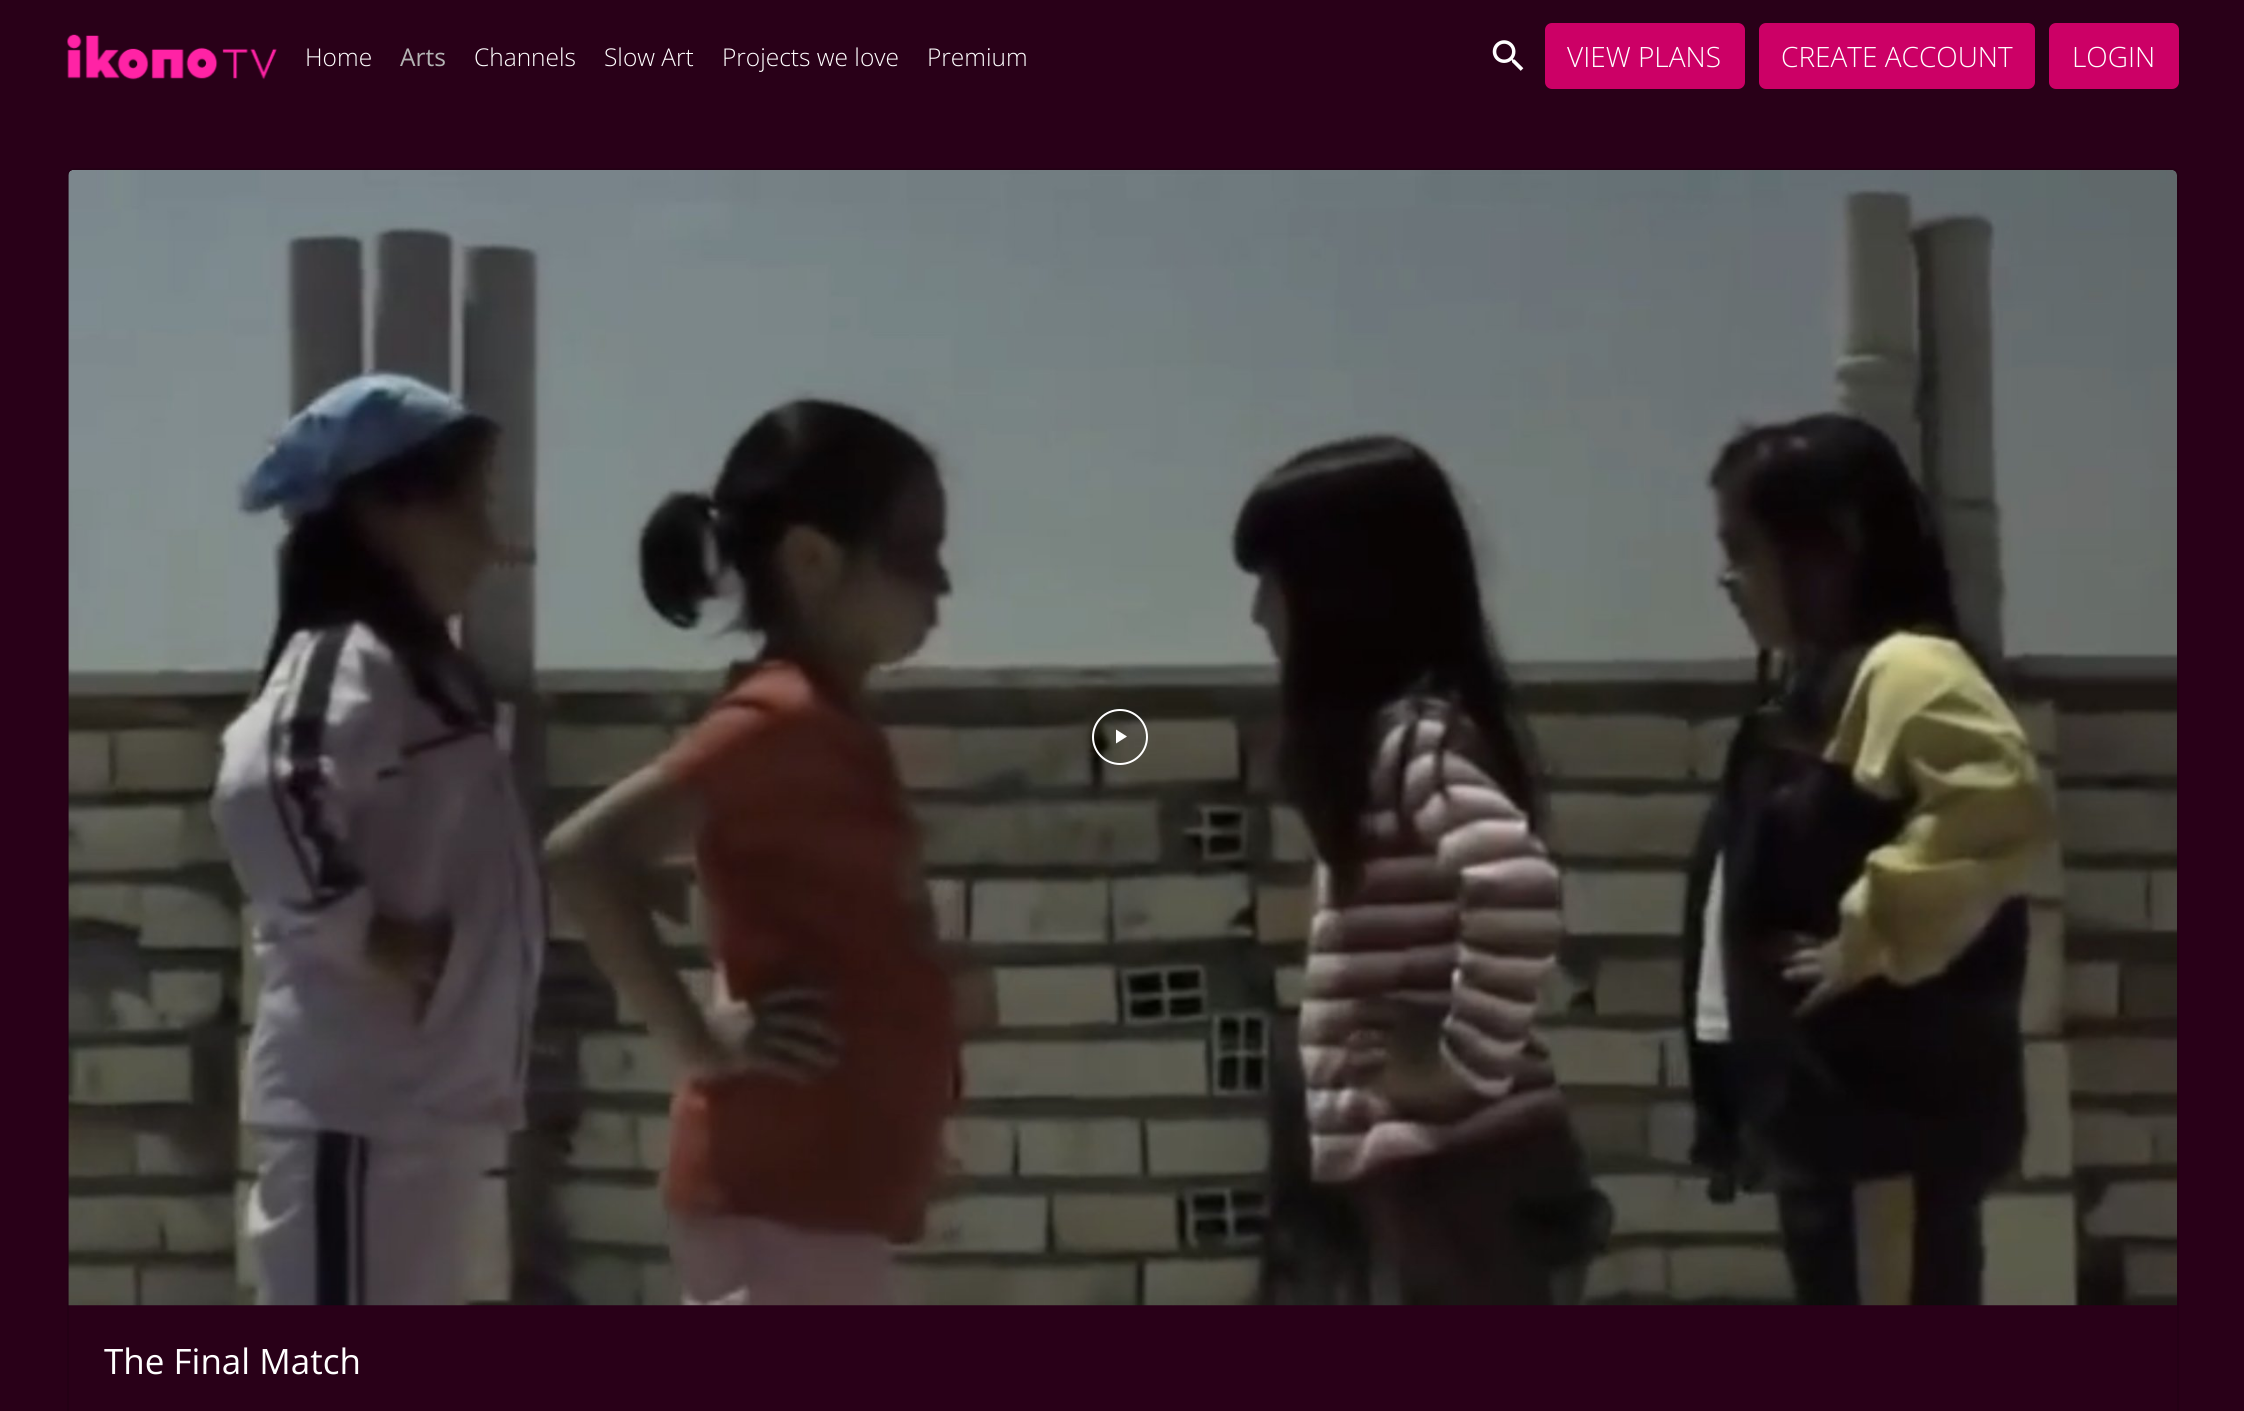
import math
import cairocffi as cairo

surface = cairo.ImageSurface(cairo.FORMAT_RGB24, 2244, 1411)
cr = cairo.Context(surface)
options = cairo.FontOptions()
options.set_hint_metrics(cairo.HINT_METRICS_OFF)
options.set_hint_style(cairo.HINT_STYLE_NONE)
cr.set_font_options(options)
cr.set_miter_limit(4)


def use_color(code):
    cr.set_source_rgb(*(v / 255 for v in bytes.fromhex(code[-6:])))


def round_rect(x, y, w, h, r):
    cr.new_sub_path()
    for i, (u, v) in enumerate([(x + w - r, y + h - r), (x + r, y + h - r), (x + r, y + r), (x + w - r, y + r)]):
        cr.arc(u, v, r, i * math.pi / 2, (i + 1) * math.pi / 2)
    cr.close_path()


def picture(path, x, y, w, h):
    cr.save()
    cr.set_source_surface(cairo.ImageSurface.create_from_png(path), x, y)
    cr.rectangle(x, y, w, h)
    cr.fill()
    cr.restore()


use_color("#290018")
cr.paint()
picture("img1.png", 67, 34, 210, 46)
cr.select_font_face("Open Sans Light")
cr.set_font_size(24.5)
use_color("#ffffff")
cr.move_to(305, 66)
cr.show_text("Home")
cr.select_font_face("Open Sans")
use_color("#b3b3b3")
cr.move_to(400, 66)
cr.show_text("Arts")
cr.select_font_face("Open Sans Light")
use_color("#ffffff")
cr.move_to(474, 66)
cr.show_text("Channels")
cr.move_to(604, 66)
cr.show_text("Slow Art")
cr.move_to(722, 66)
cr.show_text("Projects we love")
cr.move_to(927, 66)
cr.show_text("Premium")
picture("img2.png", 1492, 40, 32, 31)
use_color("#cc0066")
round_rect(1546, 24, 198, 64, 6)
cr.fill_preserve()
cr.stroke()
cr.set_font_size(28)
use_color("#ffffff")
cr.move_to(1567, 67)
cr.show_text("VIEW PLANS")
use_color("#cc0066")
round_rect(1760, 24, 274, 64, 6)
cr.fill_preserve()
cr.stroke()
use_color("#ffffff")
cr.move_to(1781, 67)
cr.show_text("CREATE ACCOUNT")
use_color("#cc0066")
round_rect(2050, 24, 128, 64, 6)
cr.fill_preserve()
cr.stroke()
use_color("#ffffff")
cr.move_to(2072, 67)
cr.show_text("LOGIN")
round_rect(68, 169, 2110, 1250, 6)
use_color("#240015")
cr.stroke()
picture("img3.png", 68, 170, 2109, 1136)
cr.arc(1120, 737, 27, 0, 2 * math.pi)
use_color("#ffffff")
cr.stroke()
cr.new_path()
cr.move_to(1116, 729.5)
cr.line_to(1116, 743.5)
cr.line_to(1127, 736.5)
cr.close_path()
cr.fill()
cr.select_font_face("Open Sans")
cr.set_font_size(35)
cr.move_to(104, 1374)
cr.show_text("The Final Match")
surface.write_to_png("result.png")
